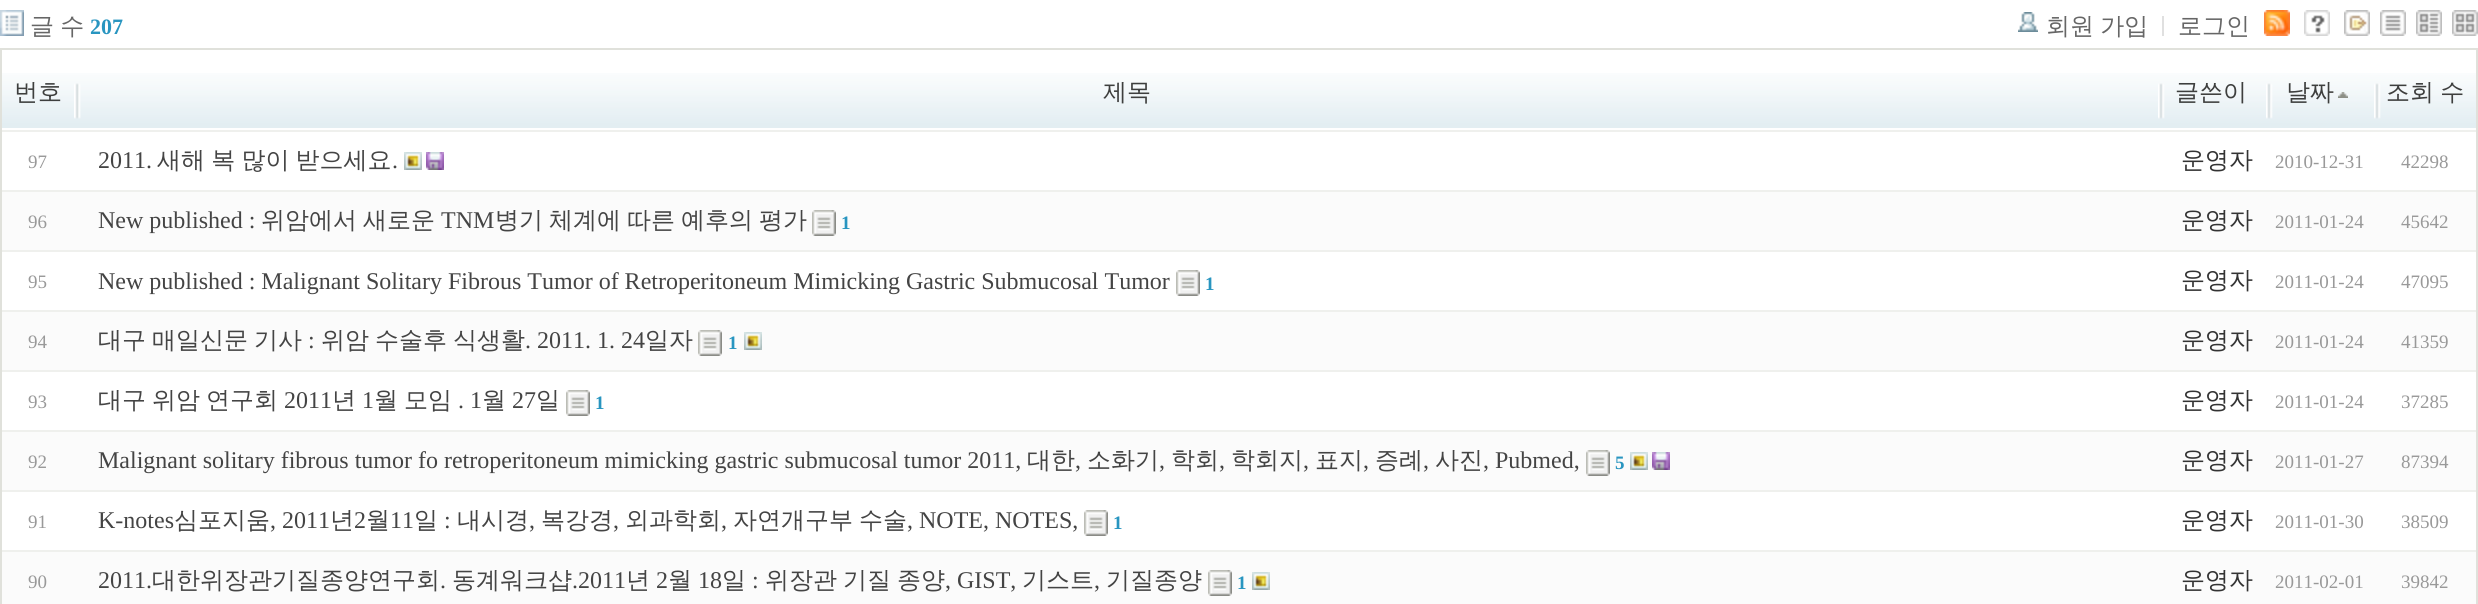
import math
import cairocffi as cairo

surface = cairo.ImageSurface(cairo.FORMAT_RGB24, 2478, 604)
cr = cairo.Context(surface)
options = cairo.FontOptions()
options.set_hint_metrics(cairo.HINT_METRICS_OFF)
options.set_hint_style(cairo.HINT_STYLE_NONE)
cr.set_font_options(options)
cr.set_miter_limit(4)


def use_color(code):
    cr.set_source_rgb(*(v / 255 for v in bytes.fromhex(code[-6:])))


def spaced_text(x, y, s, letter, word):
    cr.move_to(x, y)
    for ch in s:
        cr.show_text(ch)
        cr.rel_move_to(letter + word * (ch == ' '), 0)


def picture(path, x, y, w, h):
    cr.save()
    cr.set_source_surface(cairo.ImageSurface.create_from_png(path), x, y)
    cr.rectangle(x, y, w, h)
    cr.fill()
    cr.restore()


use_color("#ffffff")
cr.paint()
picture("img1.png", 0, 10, 24, 26)
cr.select_font_face("WenQuanYi Zen Hei Medium")
cr.set_font_size(24)
use_color("#666666")
spaced_text(30, 34, "글 수", 0, -1)
cr.select_font_face("Liberation Serif", cairo.FONT_SLANT_NORMAL, cairo.FONT_WEIGHT_BOLD)
cr.set_font_size(22)
use_color("#2895c0")
cr.move_to(90, 34)
cr.show_text("207")
picture("img2.png", 2018, 12, 20, 20)
cr.select_font_face("WenQuanYi Zen Hei Medium")
cr.set_font_size(24)
use_color("#666666")
spaced_text(2046, 34, "회원 가입", 0, -1)
cr.move_to(2178, 34)
cr.show_text("로그인")
use_color("#e0e0e0")
cr.rectangle(2162, 16, 2, 20)
cr.fill()
picture("img3.png", 2264, 10, 26, 26)
picture("img4.png", 2304, 10, 26, 26)
picture("img5.png", 2344, 10, 26, 26)
picture("img6.png", 2380, 10, 26, 26)
picture("img7.png", 2416, 10, 26, 26)
picture("img8.png", 2452, 10, 26, 26)
use_color("#e0e1db")
cr.rectangle(2476, 48, 2, 556)
cr.fill()
cr.rectangle(0, 48, 2, 556)
cr.fill()
picture("img9.png", 2, 73, 72, 55)
cr.rectangle(2, 48, 2474, 2)
cr.fill()
use_color("#3e3f3e")
cr.move_to(14, 100)
cr.show_text("번호")
picture("img10.png", 74, 73, 2084, 55)
cr.move_to(1103, 100)
cr.show_text("제목")
picture("img11.png", 2158, 73, 108, 55)
cr.move_to(2175, 100)
cr.show_text("글쓴이")
picture("img11.png", 2266, 73, 108, 55)
cr.move_to(2286, 100)
cr.show_text("날짜")
picture("img12.png", 2338, 92, 10, 6)
picture("img13.png", 2374, 73, 102, 55)
spaced_text(2386, 100, "조회 수", 0, -1)
use_color("#eff0ed")
cr.rectangle(2, 130, 2474, 2)
cr.fill()
cr.select_font_face("Liberation Serif")
cr.set_font_size(19)
use_color("#999999")
cr.move_to(28, 168)
cr.show_text("97")
cr.set_font_size(24)
use_color("#444444")
cr.move_to(98, 168)
cr.show_text("2011.")
cr.select_font_face("WenQuanYi Zen Hei Medium")
spaced_text(157, 168, "새해 복 많이 받으세요", 0, -1)
cr.select_font_face("Liberation Serif")
cr.move_to(392, 168)
cr.show_text(".")
picture("img14.png", 404, 152, 18, 18)
picture("img15.png", 426, 152, 18, 18)
cr.select_font_face("WenQuanYi Zen Hei Medium")
use_color("#333333")
cr.move_to(2181, 168)
cr.show_text("운영자")
cr.select_font_face("Liberation Serif")
cr.set_font_size(19)
use_color("#999999")
cr.move_to(2275, 168)
cr.show_text("2010-12-31")
cr.move_to(2401, 168)
cr.show_text("42298")
use_color("#fbfbfb")
cr.rectangle(2, 192, 2474, 58)
cr.fill()
use_color("#eff0ed")
cr.rectangle(2, 190, 2474, 2)
cr.fill()
use_color("#999999")
cr.move_to(28, 228)
cr.show_text("96")
cr.set_font_size(24)
use_color("#444444")
cr.move_to(98, 228)
cr.show_text("New published :")
cr.select_font_face("WenQuanYi Zen Hei Medium")
cr.move_to(261, 228)
cr.show_text("위암에서")
cr.move_to(363, 228)
cr.show_text("새로운")
cr.select_font_face("Liberation Serif")
cr.move_to(441, 228)
cr.show_text("TNM")
cr.select_font_face("WenQuanYi Zen Hei Medium")
cr.move_to(495, 228)
cr.show_text("병기")
cr.move_to(549, 228)
cr.show_text("체계에")
cr.move_to(627, 228)
cr.show_text("따른")
cr.move_to(681, 228)
cr.show_text("예후의")
cr.move_to(759, 228)
cr.show_text("평가")
picture("img16.png", 812, 210, 24, 26)
cr.select_font_face("Liberation Serif", cairo.FONT_SLANT_NORMAL, cairo.FONT_WEIGHT_BOLD)
cr.set_font_size(19)
use_color("#2895c0")
cr.move_to(841, 229)
cr.show_text("1")
cr.select_font_face("WenQuanYi Zen Hei Medium")
cr.set_font_size(24)
use_color("#333333")
cr.move_to(2181, 228)
cr.show_text("운영자")
cr.select_font_face("Liberation Serif")
cr.set_font_size(19)
use_color("#999999")
cr.move_to(2275, 228)
cr.show_text("2011-01-24")
cr.move_to(2401, 228)
cr.show_text("45642")
use_color("#eff0ed")
cr.rectangle(2, 250, 2474, 2)
cr.fill()
use_color("#999999")
cr.move_to(28, 288)
cr.show_text("95")
cr.set_font_size(24)
use_color("#444444")
cr.move_to(98, 289)
cr.show_text("New published : Malignant Solitary Fibrous Tumor of Retroperitoneum Mimicking Gastric Submucosal Tumor")
picture("img17.png", 1176, 270, 24, 26)
cr.select_font_face("Liberation Serif", cairo.FONT_SLANT_NORMAL, cairo.FONT_WEIGHT_BOLD)
cr.set_font_size(19)
use_color("#2895c0")
cr.move_to(1205, 290)
cr.show_text("1")
cr.select_font_face("WenQuanYi Zen Hei Medium")
cr.set_font_size(24)
use_color("#333333")
cr.move_to(2181, 288)
cr.show_text("운영자")
cr.select_font_face("Liberation Serif")
cr.set_font_size(19)
use_color("#999999")
cr.move_to(2275, 288)
cr.show_text("2011-01-24")
cr.move_to(2401, 288)
cr.show_text("47095")
use_color("#fbfbfb")
cr.rectangle(2, 312, 2474, 58)
cr.fill()
use_color("#eff0ed")
cr.rectangle(2, 310, 2474, 2)
cr.fill()
use_color("#999999")
cr.move_to(28, 348)
cr.show_text("94")
cr.select_font_face("WenQuanYi Zen Hei Medium")
cr.set_font_size(24)
use_color("#444444")
cr.move_to(98, 348)
cr.show_text("대구")
cr.move_to(152, 348)
cr.show_text("매일신문")
cr.move_to(254, 348)
cr.show_text("기사")
cr.select_font_face("Liberation Serif")
cr.move_to(308, 348)
cr.show_text(":")
cr.select_font_face("WenQuanYi Zen Hei Medium")
cr.move_to(321, 348)
cr.show_text("위암")
cr.move_to(375, 348)
cr.show_text("수술후")
cr.move_to(453, 348)
cr.show_text("식생활")
cr.select_font_face("Liberation Serif")
cr.move_to(525, 348)
cr.show_text(". 2011. 1. 24")
cr.select_font_face("WenQuanYi Zen Hei Medium")
cr.move_to(645, 348)
cr.show_text("일자")
picture("img16.png", 698, 330, 24, 26)
cr.select_font_face("Liberation Serif", cairo.FONT_SLANT_NORMAL, cairo.FONT_WEIGHT_BOLD)
cr.set_font_size(19)
use_color("#2895c0")
cr.move_to(728, 349)
cr.show_text("1")
picture("img14.png", 744, 332, 18, 18)
cr.select_font_face("WenQuanYi Zen Hei Medium")
cr.set_font_size(24)
use_color("#333333")
cr.move_to(2181, 348)
cr.show_text("운영자")
cr.select_font_face("Liberation Serif")
cr.set_font_size(19)
use_color("#999999")
cr.move_to(2275, 348)
cr.show_text("2011-01-24")
cr.move_to(2401, 348)
cr.show_text("41359")
use_color("#eff0ed")
cr.rectangle(2, 370, 2474, 2)
cr.fill()
use_color("#999999")
cr.move_to(28, 408)
cr.show_text("93")
cr.select_font_face("WenQuanYi Zen Hei Medium")
cr.set_font_size(24)
use_color("#444444")
cr.move_to(98, 408)
cr.show_text("대구")
cr.move_to(152, 408)
cr.show_text("위암")
cr.move_to(206, 408)
cr.show_text("연구회")
cr.select_font_face("Liberation Serif")
cr.move_to(284, 408)
cr.show_text("2011")
cr.select_font_face("WenQuanYi Zen Hei Medium")
cr.move_to(332, 408)
cr.show_text("년")
cr.select_font_face("Liberation Serif")
cr.move_to(362, 408)
cr.show_text("1")
cr.select_font_face("WenQuanYi Zen Hei Medium")
cr.move_to(374, 408)
cr.show_text("월")
cr.move_to(404, 408)
cr.show_text("모임")
cr.select_font_face("Liberation Serif")
cr.move_to(458, 408)
cr.show_text(". 1")
cr.select_font_face("WenQuanYi Zen Hei Medium")
cr.move_to(482, 408)
cr.show_text("월")
cr.select_font_face("Liberation Serif")
cr.move_to(512, 408)
cr.show_text("27")
cr.select_font_face("WenQuanYi Zen Hei Medium")
cr.move_to(536, 408)
cr.show_text("일")
picture("img17.png", 566, 390, 24, 26)
cr.select_font_face("Liberation Serif", cairo.FONT_SLANT_NORMAL, cairo.FONT_WEIGHT_BOLD)
cr.set_font_size(19)
use_color("#2895c0")
cr.move_to(595, 409)
cr.show_text("1")
cr.select_font_face("WenQuanYi Zen Hei Medium")
cr.set_font_size(24)
use_color("#333333")
cr.move_to(2181, 408)
cr.show_text("운영자")
cr.select_font_face("Liberation Serif")
cr.set_font_size(19)
use_color("#999999")
cr.move_to(2275, 408)
cr.show_text("2011-01-24")
cr.move_to(2401, 408)
cr.show_text("37285")
use_color("#fbfbfb")
cr.rectangle(2, 432, 2474, 58)
cr.fill()
use_color("#eff0ed")
cr.rectangle(2, 430, 2474, 2)
cr.fill()
use_color("#999999")
cr.move_to(28, 468)
cr.show_text("92")
cr.set_font_size(24)
use_color("#444444")
cr.move_to(98, 468)
cr.show_text("Malignant solitary fibrous tumor fo retroperitoneum mimicking gastric submucosal tumor 2011,")
cr.select_font_face("WenQuanYi Zen Hei Medium")
cr.move_to(1027, 468)
cr.show_text("대한")
cr.select_font_face("Liberation Serif")
cr.move_to(1075, 468)
cr.show_text(",")
cr.select_font_face("WenQuanYi Zen Hei Medium")
cr.move_to(1087, 468)
cr.show_text("소화기")
cr.select_font_face("Liberation Serif")
cr.move_to(1159, 468)
cr.show_text(",")
cr.select_font_face("WenQuanYi Zen Hei Medium")
cr.move_to(1171, 468)
cr.show_text("학회")
cr.select_font_face("Liberation Serif")
cr.move_to(1219, 468)
cr.show_text(",")
cr.select_font_face("WenQuanYi Zen Hei Medium")
cr.move_to(1231, 468)
cr.show_text("학회지")
cr.select_font_face("Liberation Serif")
cr.move_to(1303, 468)
cr.show_text(",")
cr.select_font_face("WenQuanYi Zen Hei Medium")
cr.move_to(1315, 468)
cr.show_text("표지")
cr.select_font_face("Liberation Serif")
cr.move_to(1363, 468)
cr.show_text(",")
cr.select_font_face("WenQuanYi Zen Hei Medium")
cr.move_to(1375, 468)
cr.show_text("증례")
cr.select_font_face("Liberation Serif")
cr.move_to(1423, 468)
cr.show_text(",")
cr.select_font_face("WenQuanYi Zen Hei Medium")
cr.move_to(1435, 468)
cr.show_text("사진")
cr.select_font_face("Liberation Serif")
cr.move_to(1483, 468)
cr.show_text(", Pubmed,")
picture("img16.png", 1586, 450, 24, 26)
cr.select_font_face("Liberation Serif", cairo.FONT_SLANT_NORMAL, cairo.FONT_WEIGHT_BOLD)
cr.set_font_size(19)
use_color("#2895c0")
cr.move_to(1615, 469)
cr.show_text("5")
picture("img14.png", 1630, 452, 18, 18)
picture("img18.png", 1652, 452, 18, 18)
cr.select_font_face("WenQuanYi Zen Hei Medium")
cr.set_font_size(24)
use_color("#333333")
cr.move_to(2181, 468)
cr.show_text("운영자")
cr.select_font_face("Liberation Serif")
cr.set_font_size(19)
use_color("#999999")
cr.move_to(2275, 468)
cr.show_text("2011-01-27")
cr.move_to(2401, 468)
cr.show_text("87394")
use_color("#eff0ed")
cr.rectangle(2, 490, 2474, 2)
cr.fill()
use_color("#999999")
cr.move_to(28, 528)
cr.show_text("91")
cr.set_font_size(24)
use_color("#444444")
cr.move_to(98, 528)
cr.show_text("K-notes")
cr.select_font_face("WenQuanYi Zen Hei Medium")
cr.move_to(174, 528)
cr.show_text("심포지움")
cr.select_font_face("Liberation Serif")
cr.move_to(270, 528)
cr.show_text(", 2011")
cr.select_font_face("WenQuanYi Zen Hei Medium")
cr.move_to(330, 528)
cr.show_text("년")
cr.select_font_face("Liberation Serif")
cr.move_to(354, 528)
cr.show_text("2")
cr.select_font_face("WenQuanYi Zen Hei Medium")
cr.move_to(366, 528)
cr.show_text("월")
cr.select_font_face("Liberation Serif")
cr.move_to(390, 528)
cr.show_text("11")
cr.select_font_face("WenQuanYi Zen Hei Medium")
cr.move_to(414, 528)
cr.show_text("일")
cr.select_font_face("Liberation Serif")
cr.move_to(444, 528)
cr.show_text(":")
cr.select_font_face("WenQuanYi Zen Hei Medium")
cr.move_to(457, 528)
cr.show_text("내시경")
cr.select_font_face("Liberation Serif")
cr.move_to(529, 528)
cr.show_text(",")
cr.select_font_face("WenQuanYi Zen Hei Medium")
cr.move_to(541, 528)
cr.show_text("복강경")
cr.select_font_face("Liberation Serif")
cr.move_to(613, 528)
cr.show_text(",")
cr.select_font_face("WenQuanYi Zen Hei Medium")
cr.move_to(625, 528)
cr.show_text("외과학회")
cr.select_font_face("Liberation Serif")
cr.move_to(721, 528)
cr.show_text(",")
cr.select_font_face("WenQuanYi Zen Hei Medium")
cr.move_to(733, 528)
cr.show_text("자연개구부")
cr.move_to(859, 528)
cr.show_text("수술")
cr.select_font_face("Liberation Serif")
cr.move_to(907, 528)
cr.show_text(", NOTE, NOTES,")
picture("img17.png", 1084, 510, 24, 26)
cr.select_font_face("Liberation Serif", cairo.FONT_SLANT_NORMAL, cairo.FONT_WEIGHT_BOLD)
cr.set_font_size(19)
use_color("#2895c0")
cr.move_to(1113, 529)
cr.show_text("1")
cr.select_font_face("WenQuanYi Zen Hei Medium")
cr.set_font_size(24)
use_color("#333333")
cr.move_to(2181, 528)
cr.show_text("운영자")
cr.select_font_face("Liberation Serif")
cr.set_font_size(19)
use_color("#999999")
cr.move_to(2275, 528)
cr.show_text("2011-01-30")
cr.move_to(2401, 528)
cr.show_text("38509")
use_color("#fbfbfb")
cr.rectangle(2, 552, 2474, 52)
cr.fill()
use_color("#eff0ed")
cr.rectangle(2, 550, 2474, 2)
cr.fill()
use_color("#999999")
cr.move_to(28, 588)
cr.show_text("90")
cr.set_font_size(24)
use_color("#444444")
cr.move_to(98, 588)
cr.show_text("2011.")
cr.select_font_face("WenQuanYi Zen Hei Medium")
cr.move_to(152, 588)
cr.show_text("대한위장관기질종양연구회")
cr.select_font_face("Liberation Serif")
cr.move_to(440, 588)
cr.show_text(".")
cr.select_font_face("WenQuanYi Zen Hei Medium")
cr.move_to(452, 588)
cr.show_text("동계워크샵")
cr.select_font_face("Liberation Serif")
cr.move_to(572, 588)
cr.show_text(".2011")
cr.select_font_face("WenQuanYi Zen Hei Medium")
cr.move_to(626, 588)
cr.show_text("년")
cr.select_font_face("Liberation Serif")
cr.move_to(656, 588)
cr.show_text("2")
cr.select_font_face("WenQuanYi Zen Hei Medium")
cr.move_to(668, 588)
cr.show_text("월")
cr.select_font_face("Liberation Serif")
cr.move_to(698, 588)
cr.show_text("18")
cr.select_font_face("WenQuanYi Zen Hei Medium")
cr.move_to(722, 588)
cr.show_text("일")
cr.select_font_face("Liberation Serif")
cr.move_to(752, 588)
cr.show_text(":")
cr.select_font_face("WenQuanYi Zen Hei Medium")
cr.move_to(765, 588)
cr.show_text("위장관")
cr.move_to(843, 588)
cr.show_text("기질")
cr.move_to(897, 588)
cr.show_text("종양")
cr.select_font_face("Liberation Serif")
cr.move_to(945, 588)
cr.show_text(", GIST,")
cr.select_font_face("WenQuanYi Zen Hei Medium")
cr.move_to(1022, 588)
cr.show_text("기스트")
cr.select_font_face("Liberation Serif")
cr.move_to(1094, 588)
cr.show_text(",")
cr.select_font_face("WenQuanYi Zen Hei Medium")
cr.move_to(1106, 588)
cr.show_text("기질종양")
picture("img16.png", 1208, 570, 24, 26)
cr.select_font_face("Liberation Serif", cairo.FONT_SLANT_NORMAL, cairo.FONT_WEIGHT_BOLD)
cr.set_font_size(19)
use_color("#2895c0")
cr.move_to(1237, 589)
cr.show_text("1")
picture("img14.png", 1252, 572, 18, 18)
cr.select_font_face("WenQuanYi Zen Hei Medium")
cr.set_font_size(24)
use_color("#333333")
cr.move_to(2181, 588)
cr.show_text("운영자")
cr.select_font_face("Liberation Serif")
cr.set_font_size(19)
use_color("#999999")
cr.move_to(2275, 588)
cr.show_text("2011-02-01")
cr.move_to(2401, 588)
cr.show_text("39842")
surface.write_to_png("result.png")
